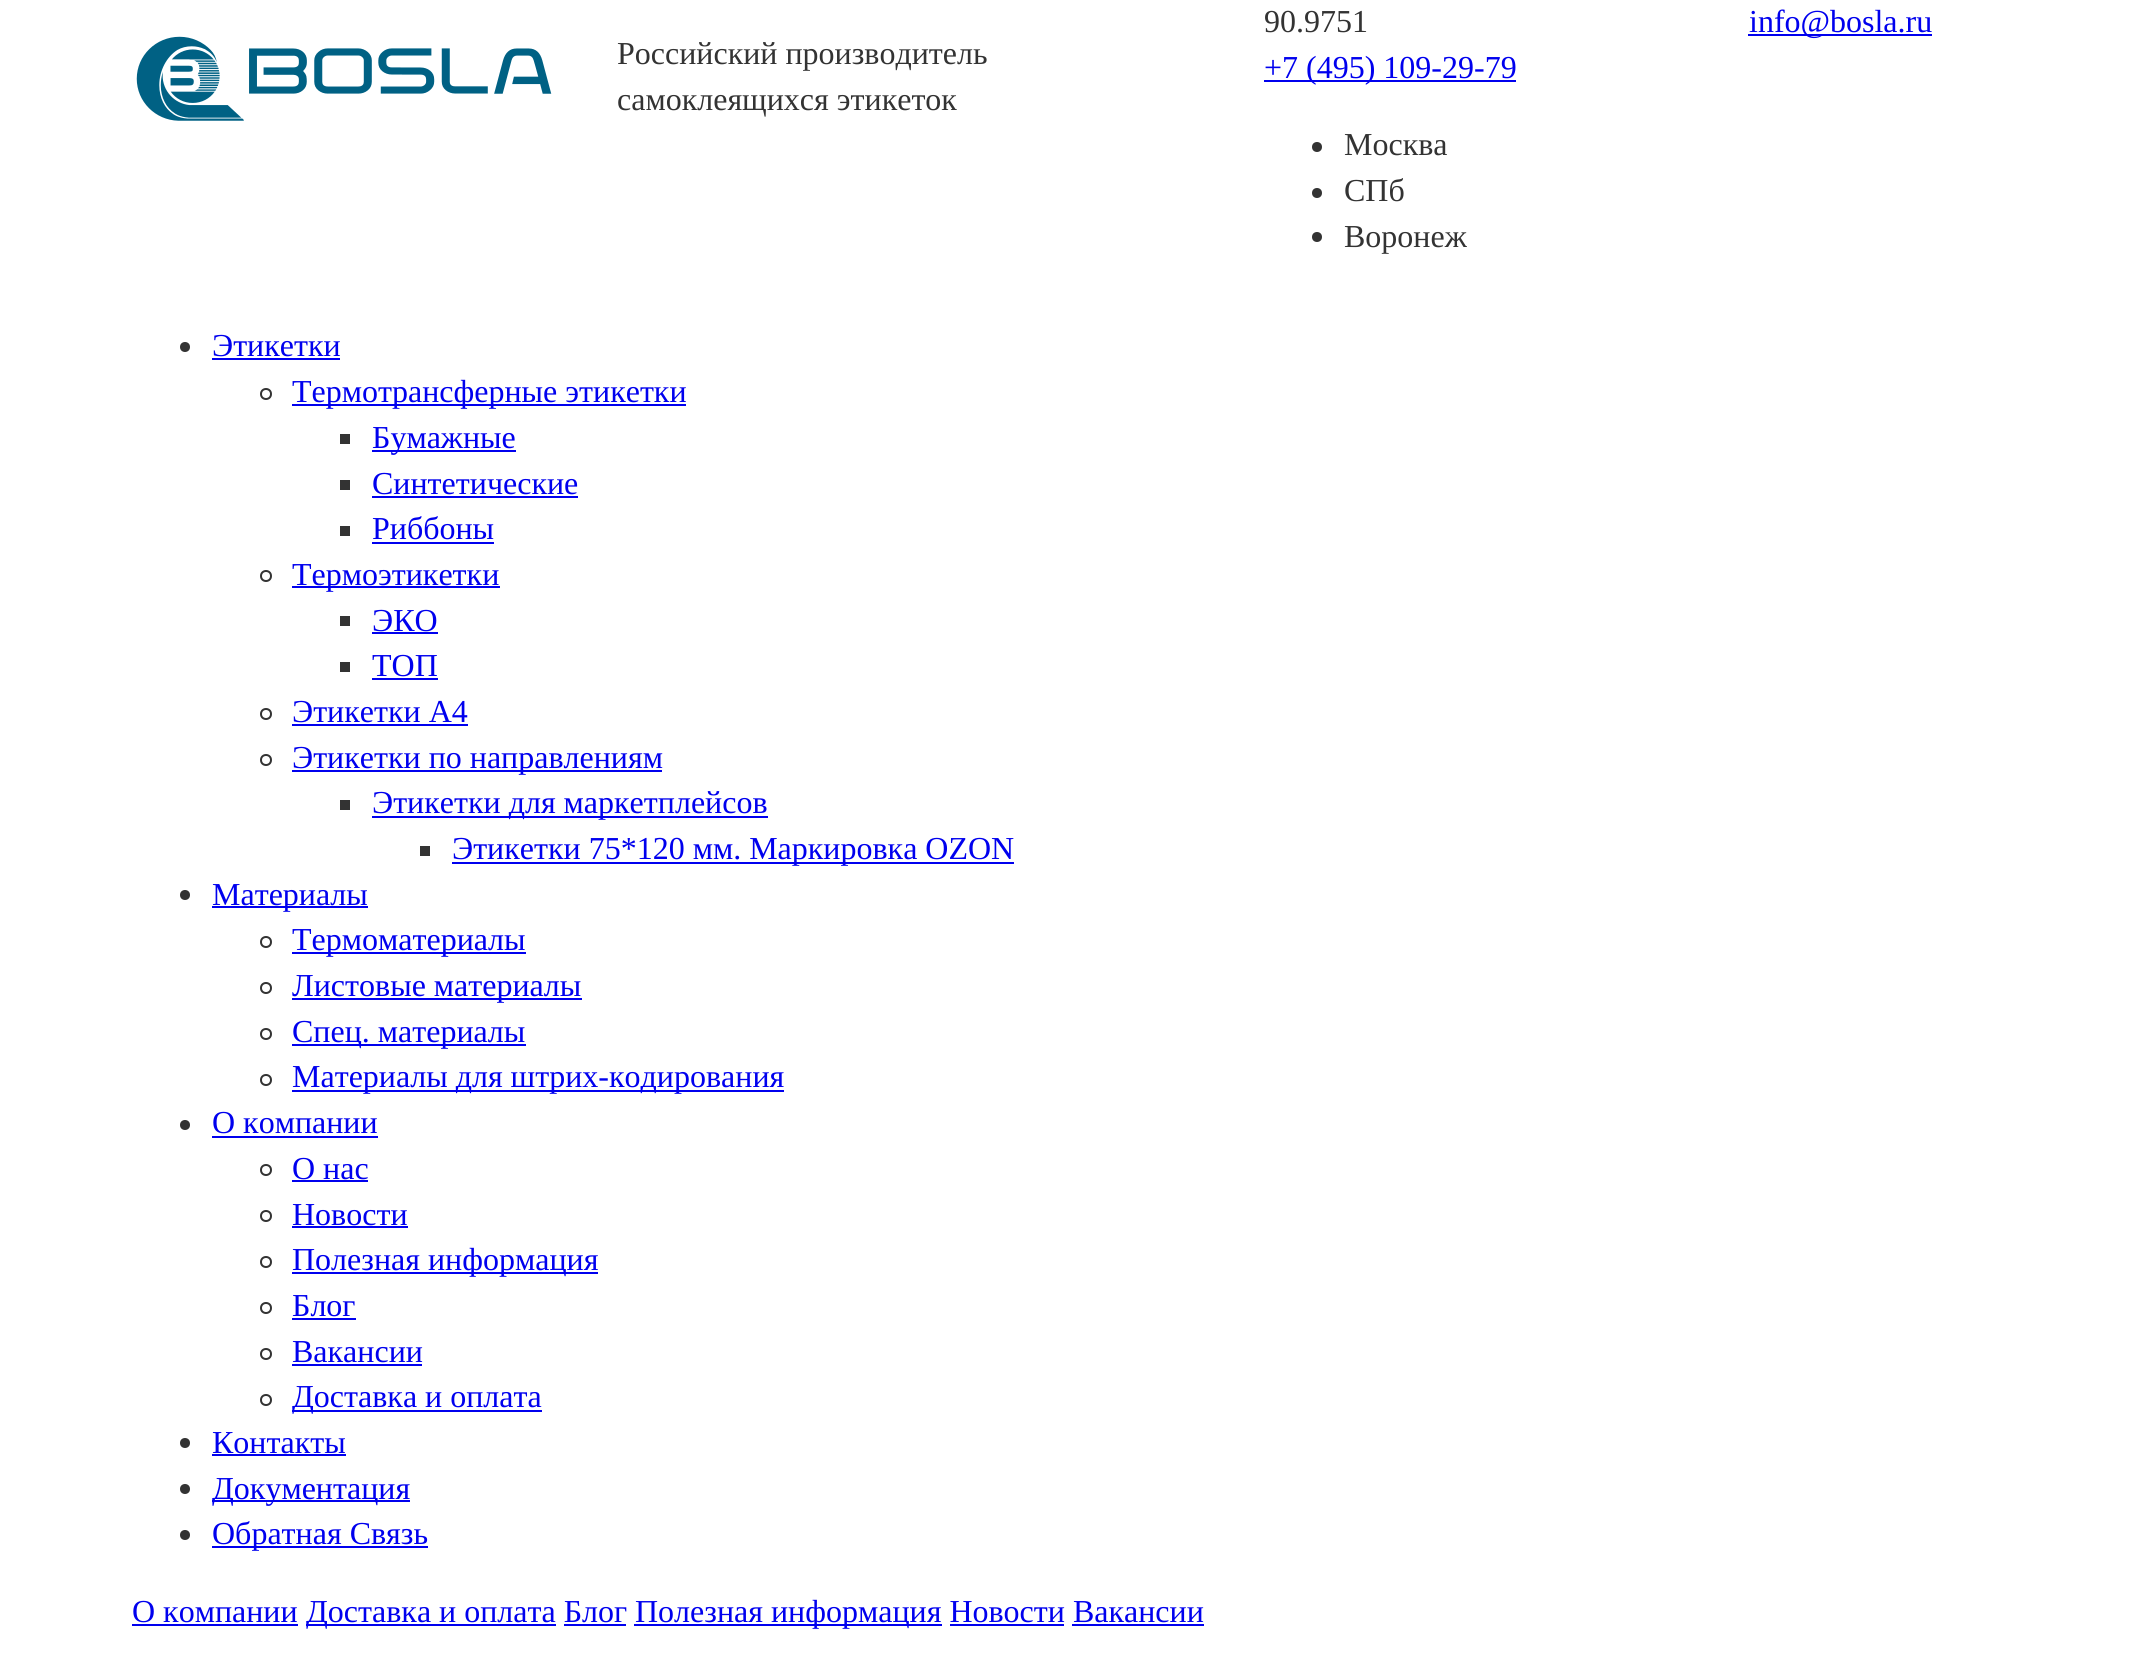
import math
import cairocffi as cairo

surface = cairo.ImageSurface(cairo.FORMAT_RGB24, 2143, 1673)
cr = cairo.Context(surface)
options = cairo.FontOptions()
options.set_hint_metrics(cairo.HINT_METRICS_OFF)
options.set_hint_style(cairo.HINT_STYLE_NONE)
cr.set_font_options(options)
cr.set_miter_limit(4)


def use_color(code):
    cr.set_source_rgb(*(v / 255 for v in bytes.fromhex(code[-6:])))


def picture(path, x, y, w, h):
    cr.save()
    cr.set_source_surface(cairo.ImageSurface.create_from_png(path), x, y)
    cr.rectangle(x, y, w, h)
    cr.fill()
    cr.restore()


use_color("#ffffff")
cr.paint()
picture("img1.png", 136, 36, 416, 85)
cr.select_font_face("Liberation Serif")
cr.set_font_size(32)
use_color("#333333")
cr.move_to(617, 64)
cr.show_text("Российский производитель")
cr.move_to(617, 110)
cr.show_text("самоклеящихся этикеток")
cr.move_to(1264, 32)
cr.show_text("90.9751")
use_color("#0000ee")
cr.rectangle(1264, 80, 252, 2)
cr.fill()
cr.move_to(1264, 78)
cr.show_text("+7 (495) 109-29-79")
use_color("#333333")
cr.new_path()
cr.arc(1317, 147, 5, 0, 2 * math.pi)
cr.fill()
cr.move_to(1344, 155)
cr.show_text("Москва")
cr.new_path()
cr.arc(1317, 193, 5, 0, 2 * math.pi)
cr.fill()
cr.move_to(1344, 201)
cr.show_text("СПб")
cr.new_path()
cr.arc(1317, 237, 5, 0, 2 * math.pi)
cr.fill()
cr.move_to(1344, 247)
cr.show_text("Воронеж")
use_color("#0000ee")
cr.rectangle(1748, 34, 184, 2)
cr.fill()
cr.move_to(1749, 32)
cr.show_text("info@bosla.ru")
use_color("#333333")
cr.new_path()
cr.arc(185, 347, 5, 0, 2 * math.pi)
cr.fill()
use_color("#0000ee")
cr.move_to(212, 356)
cr.show_text("Этикетки")
cr.rectangle(212, 358, 128, 2)
cr.fill()
cr.arc(266, 394, 5, 0, 2 * math.pi)
use_color("#333333")
cr.stroke()
use_color("#0000ee")
cr.rectangle(292, 404, 394, 2)
cr.fill()
cr.move_to(292, 402)
cr.show_text("Термотрансферные этикетки")
use_color("#333333")
cr.rectangle(340, 434, 10, 10)
cr.fill()
use_color("#0000ee")
cr.rectangle(372, 450, 144, 2)
cr.fill()
cr.move_to(372, 448)
cr.show_text("Бумажные")
use_color("#333333")
cr.rectangle(340, 480, 10, 10)
cr.fill()
use_color("#0000ee")
cr.move_to(372, 494)
cr.show_text("Синтетические")
cr.rectangle(372, 496, 206, 2)
cr.fill()
use_color("#333333")
cr.rectangle(340, 526, 10, 10)
cr.fill()
use_color("#0000ee")
cr.move_to(372, 539)
cr.show_text("Риббоны")
cr.rectangle(372, 542, 122, 2)
cr.fill()
cr.arc(266, 576, 5, 0, 2 * math.pi)
use_color("#333333")
cr.stroke()
use_color("#0000ee")
cr.rectangle(292, 586, 208, 2)
cr.fill()
cr.move_to(292, 585)
cr.show_text("Термоэтикетки")
use_color("#333333")
cr.rectangle(340, 616, 10, 10)
cr.fill()
use_color("#0000ee")
cr.move_to(372, 631)
cr.show_text("ЭКО")
cr.rectangle(372, 632, 66, 2)
cr.fill()
use_color("#333333")
cr.rectangle(340, 662, 10, 10)
cr.fill()
use_color("#0000ee")
cr.move_to(372, 676)
cr.show_text("ТОП")
cr.rectangle(372, 678, 66, 2)
cr.fill()
cr.arc(266, 714, 5, 0, 2 * math.pi)
use_color("#333333")
cr.stroke()
use_color("#0000ee")
cr.move_to(292, 722)
cr.show_text("Этикетки А4")
cr.rectangle(292, 724, 176, 2)
cr.fill()
cr.arc(266, 760, 5, 0, 2 * math.pi)
use_color("#333333")
cr.stroke()
use_color("#0000ee")
cr.rectangle(292, 770, 370, 2)
cr.fill()
cr.move_to(292, 768)
cr.show_text("Этикетки по направлениям")
use_color("#333333")
cr.rectangle(340, 800, 10, 10)
cr.fill()
use_color("#0000ee")
cr.rectangle(372, 816, 396, 2)
cr.fill()
cr.move_to(372, 813)
cr.show_text("Этикетки для маркетплейсов")
use_color("#333333")
cr.rectangle(420, 846, 10, 10)
cr.fill()
use_color("#0000ee")
cr.rectangle(452, 862, 562, 2)
cr.fill()
cr.move_to(452, 859)
cr.show_text("Этикетки 75*120 мм. Маркировка OZON")
use_color("#333333")
cr.new_path()
cr.arc(185, 895, 5, 0, 2 * math.pi)
cr.fill()
use_color("#0000ee")
cr.rectangle(212, 906, 156, 2)
cr.fill()
cr.move_to(212, 905)
cr.show_text("Материалы")
cr.new_path()
cr.arc(266, 942, 5, 0, 2 * math.pi)
use_color("#333333")
cr.stroke()
use_color("#0000ee")
cr.rectangle(292, 952, 234, 2)
cr.fill()
cr.move_to(292, 950)
cr.show_text("Термоматериалы")
cr.new_path()
cr.arc(266, 988, 5, 0, 2 * math.pi)
use_color("#333333")
cr.stroke()
use_color("#0000ee")
cr.rectangle(292, 998, 290, 2)
cr.fill()
cr.move_to(292, 996)
cr.show_text("Листовые материалы")
cr.new_path()
cr.arc(266, 1034, 5, 0, 2 * math.pi)
use_color("#333333")
cr.stroke()
use_color("#0000ee")
cr.rectangle(292, 1044, 234, 2)
cr.fill()
cr.move_to(292, 1042)
cr.show_text("Спец. материалы")
cr.new_path()
cr.arc(266, 1080, 5, 0, 2 * math.pi)
use_color("#333333")
cr.stroke()
use_color("#0000ee")
cr.rectangle(292, 1090, 492, 2)
cr.fill()
cr.move_to(292, 1087)
cr.show_text("Материалы для штрих-кодирования")
use_color("#333333")
cr.new_path()
cr.arc(185, 1125, 5, 0, 2 * math.pi)
cr.fill()
use_color("#0000ee")
cr.move_to(212, 1133)
cr.show_text("О компании")
cr.rectangle(212, 1136, 166, 2)
cr.fill()
cr.arc(266, 1170, 5, 0, 2 * math.pi)
use_color("#333333")
cr.stroke()
use_color("#0000ee")
cr.move_to(292, 1179)
cr.show_text("О нас")
cr.rectangle(292, 1180, 76, 2)
cr.fill()
cr.arc(266, 1216, 5, 0, 2 * math.pi)
use_color("#333333")
cr.stroke()
use_color("#0000ee")
cr.move_to(292, 1225)
cr.show_text("Новости")
cr.rectangle(292, 1226, 116, 2)
cr.fill()
cr.arc(266, 1262, 5, 0, 2 * math.pi)
use_color("#333333")
cr.stroke()
use_color("#0000ee")
cr.rectangle(292, 1272, 306, 2)
cr.fill()
cr.move_to(292, 1270)
cr.show_text("Полезная информация")
cr.new_path()
cr.arc(266, 1308, 5, 0, 2 * math.pi)
use_color("#333333")
cr.stroke()
use_color("#0000ee")
cr.move_to(292, 1316)
cr.show_text("Блог")
cr.rectangle(292, 1318, 64, 2)
cr.fill()
cr.arc(266, 1354, 5, 0, 2 * math.pi)
use_color("#333333")
cr.stroke()
use_color("#0000ee")
cr.move_to(292, 1362)
cr.show_text("Вакансии")
cr.rectangle(292, 1364, 130, 2)
cr.fill()
cr.arc(266, 1400, 5, 0, 2 * math.pi)
use_color("#333333")
cr.stroke()
use_color("#0000ee")
cr.rectangle(292, 1410, 250, 2)
cr.fill()
cr.move_to(292, 1407)
cr.show_text("Доставка и оплата")
use_color("#333333")
cr.new_path()
cr.arc(185, 1443, 5, 0, 2 * math.pi)
cr.fill()
use_color("#0000ee")
cr.move_to(212, 1453)
cr.show_text("Контакты")
cr.rectangle(212, 1454, 134, 2)
cr.fill()
use_color("#333333")
cr.arc(185, 1489, 5, 0, 2 * math.pi)
cr.fill()
use_color("#0000ee")
cr.rectangle(212, 1500, 198, 2)
cr.fill()
cr.move_to(212, 1499)
cr.show_text("Документация")
use_color("#333333")
cr.new_path()
cr.arc(185, 1535, 5, 0, 2 * math.pi)
cr.fill()
use_color("#0000ee")
cr.rectangle(212, 1546, 216, 2)
cr.fill()
cr.move_to(212, 1544)
cr.show_text("Обратная Связь")
cr.move_to(132, 1622)
cr.show_text("О компании")
cr.rectangle(132, 1624, 166, 2)
cr.fill()
cr.rectangle(306, 1624, 250, 2)
cr.fill()
cr.move_to(306, 1622)
cr.show_text("Доставка и оплата Блог")
cr.rectangle(634, 1624, 308, 2)
cr.fill()
cr.move_to(635, 1622)
cr.show_text("Полезная информация Новости Вакансии")
cr.rectangle(564, 1624, 62, 2)
cr.fill()
cr.rectangle(950, 1624, 114, 2)
cr.fill()
cr.rectangle(1072, 1624, 132, 2)
cr.fill()
surface.write_to_png("result.png")
